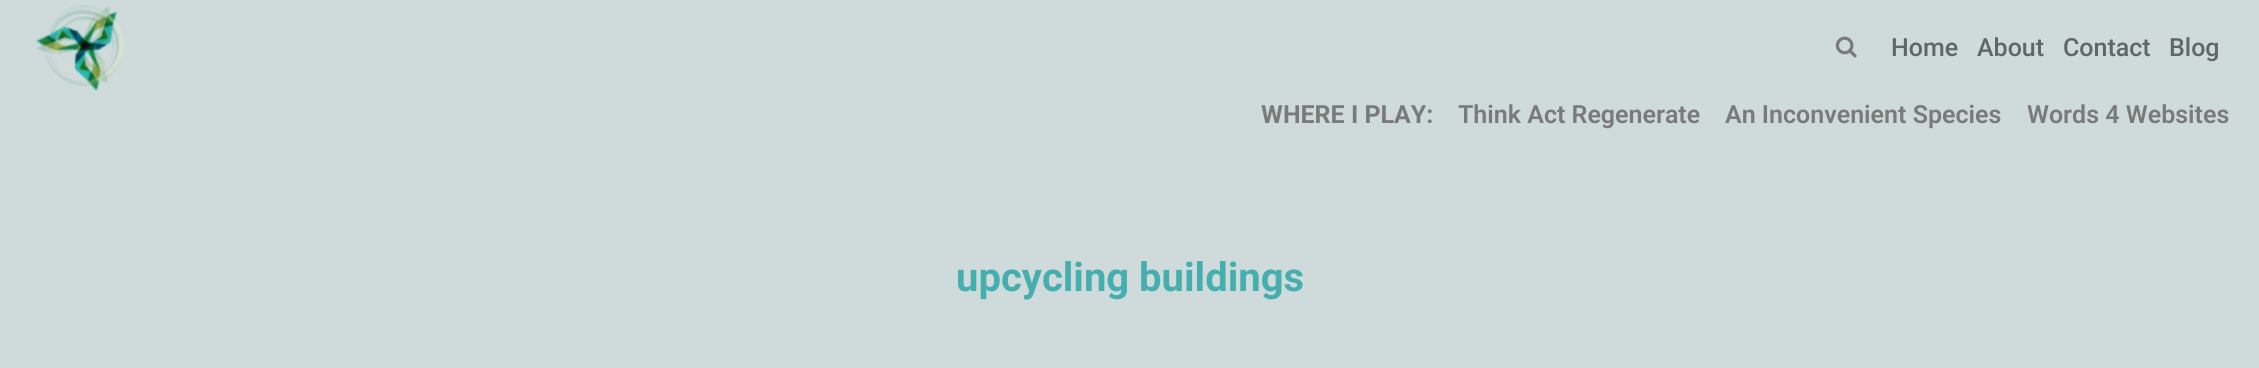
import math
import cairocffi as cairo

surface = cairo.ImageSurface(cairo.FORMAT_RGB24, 2259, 368)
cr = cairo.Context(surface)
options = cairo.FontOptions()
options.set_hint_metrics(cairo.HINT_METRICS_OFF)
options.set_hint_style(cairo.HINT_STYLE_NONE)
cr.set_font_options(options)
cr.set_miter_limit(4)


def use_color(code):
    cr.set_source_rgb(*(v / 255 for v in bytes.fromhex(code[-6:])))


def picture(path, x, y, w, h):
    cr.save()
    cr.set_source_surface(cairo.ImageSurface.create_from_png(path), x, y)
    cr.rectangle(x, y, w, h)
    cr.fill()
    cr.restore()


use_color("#cfdada")
cr.paint()
picture("img1.png", 36, 5, 89, 86)
picture("img2.png", 1835, 36, 22, 22)
cr.select_font_face("Roboto Medium")
cr.set_font_size(25)
use_color("#616469")
cr.move_to(1891, 56)
cr.show_text("Home")
cr.move_to(1977, 56)
cr.show_text("About")
cr.move_to(2063, 56)
cr.show_text("Contact")
cr.move_to(2169, 56)
cr.show_text("Blog")
cr.select_font_face("Roboto", cairo.FONT_SLANT_NORMAL, cairo.FONT_WEIGHT_BOLD)
use_color("#7a7a7a")
cr.move_to(1261, 123)
cr.show_text("WHERE I PLAY:")
cr.select_font_face("Roboto SemiBold")
cr.move_to(1458, 123)
cr.show_text("Think Act Regenerate")
cr.move_to(1725, 123)
cr.show_text("An Inconvenient Species")
cr.move_to(2027, 123)
cr.show_text("Words 4 Websites")
cr.select_font_face("Roboto", cairo.FONT_SLANT_NORMAL, cairo.FONT_WEIGHT_BOLD)
cr.set_font_size(40)
use_color("#44afae")
cr.move_to(956, 291)
cr.show_text("upcycling buildings")
surface.write_to_png("result.png")
